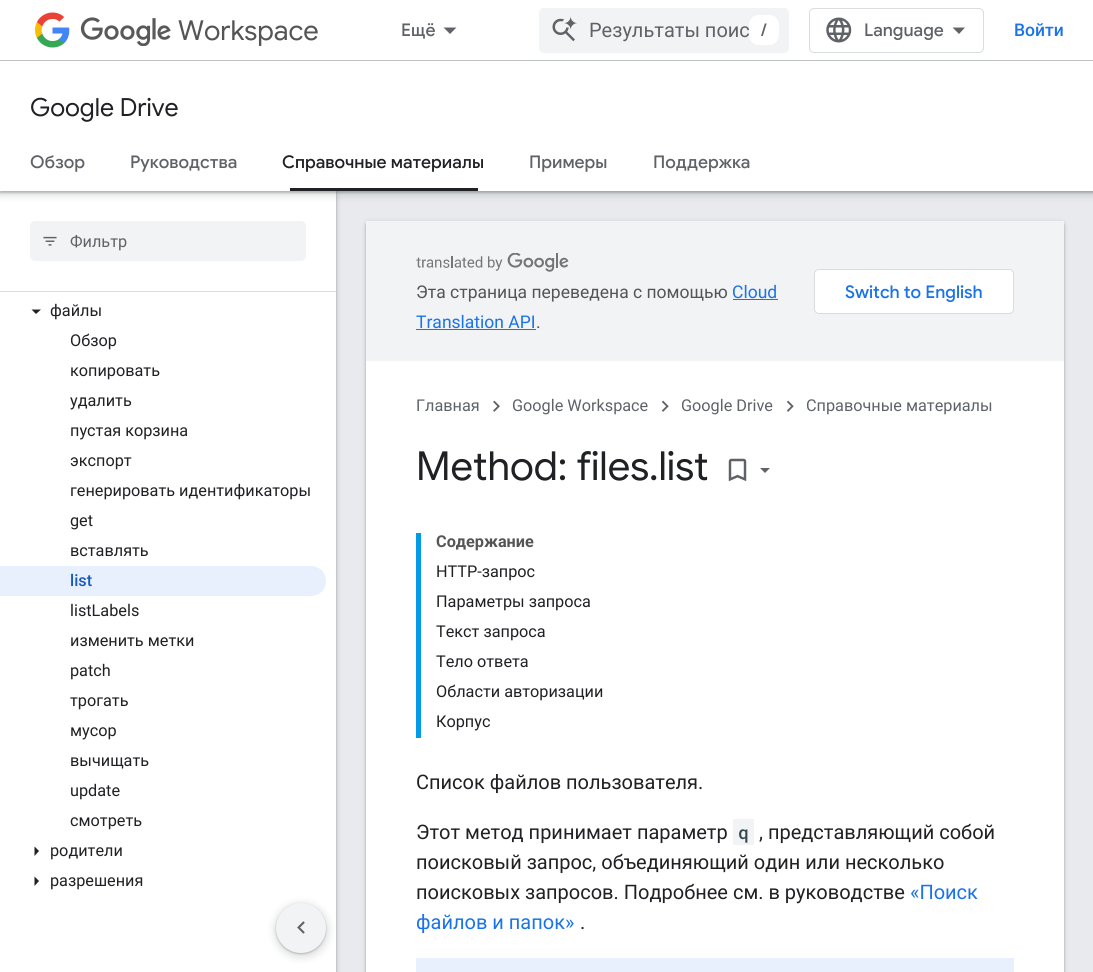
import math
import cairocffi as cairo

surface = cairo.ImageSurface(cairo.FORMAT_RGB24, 1093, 972)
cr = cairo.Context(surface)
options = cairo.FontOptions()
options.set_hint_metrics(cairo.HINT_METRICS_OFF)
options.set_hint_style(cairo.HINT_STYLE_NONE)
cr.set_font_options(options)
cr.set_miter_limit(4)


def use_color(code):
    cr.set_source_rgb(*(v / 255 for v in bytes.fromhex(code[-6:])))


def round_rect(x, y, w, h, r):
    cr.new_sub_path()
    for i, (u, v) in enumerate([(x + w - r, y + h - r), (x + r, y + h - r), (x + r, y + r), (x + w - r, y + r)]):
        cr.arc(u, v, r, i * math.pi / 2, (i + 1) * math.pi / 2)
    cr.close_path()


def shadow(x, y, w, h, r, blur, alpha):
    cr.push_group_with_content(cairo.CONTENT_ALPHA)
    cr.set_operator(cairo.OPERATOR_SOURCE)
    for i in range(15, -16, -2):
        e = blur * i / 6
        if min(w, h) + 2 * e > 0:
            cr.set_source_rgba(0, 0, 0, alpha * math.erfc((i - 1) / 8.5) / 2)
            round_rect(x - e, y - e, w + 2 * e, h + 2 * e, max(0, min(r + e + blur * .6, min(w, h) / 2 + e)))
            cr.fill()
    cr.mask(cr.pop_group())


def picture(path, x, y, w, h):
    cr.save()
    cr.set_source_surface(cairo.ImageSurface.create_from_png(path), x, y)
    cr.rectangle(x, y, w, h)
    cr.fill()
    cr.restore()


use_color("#e8eaed")
cr.paint()
use_color("#3c4043")
shadow(-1, 0, 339, 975, 0, 2, 0.15)
shadow(0, 1, 336, 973, 0, 1, 0.3)
use_color("#ffffff")
cr.rectangle(0, 191, 336, 781)
cr.fill()
use_color("#3c4043")
shadow(-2, 61, 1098, 135, 0, 4, 0.15)
shadow(0, 63, 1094, 130, 0, 1, 0.3)
use_color("#ffffff")
cr.rectangle(0, 0, 1093, 60)
cr.fill()
use_color("#bdc1c6")
cr.rectangle(0, 60, 1093, 1)
cr.fill()
picture("img1.png", 35, 12, 35, 36)
picture("img2.png", 80, 17, 91, 29)
cr.select_font_face("Google Sans")
cr.set_font_size(27.5)
use_color("#545555")
cr.move_to(178, 40)
cr.show_text("Workspace")
cr.select_font_face("Google Sans Medium")
cr.set_font_size(17.5)
use_color("#5f6368")
cr.move_to(401, 36)
cr.show_text("Ещё")
cr.new_path()
cr.move_to(443.5, 27.5)
cr.line_to(456.5, 27.5)
cr.line_to(450, 34)
cr.close_path()
cr.fill()
use_color("#f1f3f4")
round_rect(539, 8, 250, 45, 5)
cr.fill()
picture("img3.png", 552, 16, 25, 26)
cr.select_font_face("Roboto")
cr.set_font_size(20)
use_color("#5f6368")
cr.move_to(589, 37)
cr.show_text("Результаты поис")
use_color("#ffffff")
round_rect(749, 15, 30, 30, 10)
cr.fill()
cr.select_font_face("Google Sans Medium")
cr.set_font_size(17.5)
use_color("#5f6368")
cr.move_to(761, 36)
cr.show_text("/")
round_rect(809.5, 8.5, 174, 44, 4.5)
use_color("#dadce0")
cr.set_line_width(1)
cr.stroke()
picture("img4.png", 826, 17, 26, 26)
use_color("#5f6368")
cr.move_to(864, 36)
cr.show_text("Language")
cr.new_path()
cr.move_to(959, 34)
cr.line_to(952.5, 27.5)
cr.line_to(965, 27.5)
cr.close_path()
cr.fill()
cr.select_font_face("Roboto Medium")
use_color("#1a73e8")
cr.move_to(1014, 36)
cr.show_text("Войти")
use_color("#ffffff")
cr.rectangle(0, 61, 1093, 130)
cr.fill()
cr.select_font_face("Google Sans")
cr.set_font_size(25)
use_color("#202124")
cr.move_to(30, 116)
cr.show_text("Google Drive")
cr.select_font_face("Google Sans Medium")
cr.set_font_size(17.5)
use_color("#5f6368")
cr.move_to(30, 168)
cr.show_text("Обзор")
cr.move_to(130, 168)
cr.show_text("Руководства")
use_color("#202124")
cr.move_to(282, 168)
cr.show_text("Справочные материалы")
cr.rectangle(290, 188, 188, 3)
cr.fill()
use_color("#5f6368")
cr.move_to(529, 168)
cr.show_text("Примеры")
cr.move_to(653, 168)
cr.show_text("Поддержка")
use_color("#dadce0")
cr.rectangle(0, 291, 336, 1)
cr.fill()
use_color("#f1f3f4")
round_rect(30, 221, 276, 40, 5)
cr.fill()
picture("img5.png", 43, 236, 14, 10)
cr.select_font_face("Roboto")
cr.set_font_size(16.25)
use_color("#5f6368")
cr.move_to(70, 247)
cr.show_text("Фильтр")
use_color("#202124")
cr.new_path()
cr.move_to(31.5, 309.5)
cr.line_to(41, 309.5)
cr.line_to(36, 314)
cr.close_path()
cr.fill()
cr.move_to(50, 316)
cr.show_text("файлы")
cr.move_to(70, 346)
cr.show_text("Обзор")
cr.move_to(70, 376)
cr.show_text("копировать")
cr.move_to(70, 406)
cr.show_text("удалить")
cr.move_to(70, 436)
cr.show_text("пустая корзина")
cr.move_to(70, 466)
cr.show_text("экспорт")
cr.move_to(70, 496)
cr.show_text("генерировать идентификаторы")
cr.move_to(70, 526)
cr.show_text("get")
cr.move_to(70, 556)
cr.show_text("вставлять")
use_color("#e8f0fe")
cr.new_path()
cr.move_to(0, 566)
cr.line_to(311, 566)
cr.curve_to(319.5, 566, 326, 572.5, 326, 581)
cr.curve_to(326, 589.5, 319.5, 596, 311, 596)
cr.line_to(0, 596)
cr.close_path()
cr.fill()
cr.select_font_face("Roboto Medium")
use_color("#185abc")
cr.move_to(70, 586)
cr.show_text("list")
cr.select_font_face("Roboto")
use_color("#202124")
cr.move_to(70, 616)
cr.show_text("listLabels")
cr.move_to(70, 646)
cr.show_text("изменить метки")
cr.move_to(70, 676)
cr.show_text("patch")
cr.move_to(70, 706)
cr.show_text("трогать")
cr.move_to(70, 736)
cr.show_text("мусор")
cr.move_to(70, 766)
cr.show_text("вычищать")
cr.move_to(70, 796)
cr.show_text("update")
cr.move_to(70, 826)
cr.show_text("смотреть")
cr.new_path()
cr.move_to(34.5, 856)
cr.line_to(34.5, 846.5)
cr.line_to(39, 851)
cr.close_path()
cr.fill()
cr.move_to(50, 856)
cr.show_text("родители")
cr.new_path()
cr.move_to(34.5, 886)
cr.line_to(34.5, 876.5)
cr.line_to(39, 881)
cr.close_path()
cr.fill()
cr.move_to(50, 886)
cr.show_text("разрешения")
use_color("#3c4043")
shadow(365, 221, 700, 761, 4, 2, 0.15)
shadow(366, 223, 698, 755, 2.5, 1, 0.3)
use_color("#ffffff")
cr.rectangle(366, 361, 698, 611)
cr.fill()
use_color("#f1f3f4")
cr.rectangle(366, 221, 698, 140)
cr.fill()
picture("img6.png", 416, 253, 153, 19)
cr.set_font_size(17.5)
use_color("#545555")
cr.move_to(416, 298)
cr.show_text("Эта страница переведена с помощью")
use_color("#1a73e8")
cr.move_to(732, 298)
cr.show_text("Cloud")
cr.rectangle(733, 299, 45, 1)
cr.fill()
cr.move_to(416, 328)
cr.show_text("Translation API")
cr.rectangle(416, 329, 120, 1)
cr.fill()
use_color("#545555")
cr.move_to(536, 328)
cr.show_text(".")
use_color("#ffffff")
round_rect(814.5, 269.5, 199, 44, 4.5)
cr.fill_preserve()
use_color("#dadce0")
cr.stroke()
cr.select_font_face("Google Sans Medium")
use_color("#1a73e8")
cr.move_to(845, 298)
cr.show_text("Switch to English")
cr.select_font_face("Roboto")
cr.set_font_size(16.25)
use_color("#5f6368")
cr.move_to(416, 411)
cr.show_text("Главная")
picture("img7.png", 493, 400, 7, 12)
cr.move_to(512, 411)
cr.show_text("Google Workspace")
picture("img8.png", 661, 400, 8, 12)
cr.move_to(681, 411)
cr.show_text("Google Drive")
picture("img8.png", 786, 400, 8, 12)
cr.move_to(806, 411)
cr.show_text("Справочные материалы")
cr.select_font_face("Google Sans")
cr.set_font_size(40)
use_color("#202124")
cr.move_to(416, 480)
cr.show_text("Method: files.list")
picture("img9.png", 728, 458, 19, 24)
use_color("#5f6368")
cr.new_path()
cr.move_to(760, 468)
cr.line_to(770, 468)
cr.line_to(765, 473)
cr.close_path()
cr.fill()
use_color("#039be5")
cr.rectangle(416, 533, 5, 205)
cr.fill()
cr.select_font_face("Roboto", cairo.FONT_SLANT_NORMAL, cairo.FONT_WEIGHT_BOLD)
cr.set_font_size(16.25)
use_color("#545555")
cr.move_to(436, 547)
cr.show_text("Содержание")
cr.select_font_face("Roboto")
use_color("#202124")
cr.move_to(436, 577)
cr.show_text("HTTP-запрос")
cr.move_to(436, 607)
cr.show_text("Параметры запроса")
cr.move_to(436, 637)
cr.show_text("Текст запроса")
cr.move_to(436, 667)
cr.show_text("Тело ответа")
cr.move_to(436, 697)
cr.show_text("Области авторизации")
cr.move_to(436, 727)
cr.show_text("Корпус")
cr.set_font_size(20)
cr.move_to(416, 789)
cr.show_text("Список файлов пользователя.")
cr.move_to(416, 839)
cr.show_text("Этот метод принимает параметр")
use_color("#f1f3f4")
cr.rectangle(733, 819, 21, 26)
cr.fill()
cr.select_font_face("Roboto Mono Medium")
cr.set_font_size(18)
use_color("#37474f")
cr.move_to(738, 839)
cr.show_text("q")
cr.select_font_face("Roboto")
cr.set_font_size(20)
use_color("#202124")
cr.move_to(759, 839)
cr.show_text(", представляющий собой")
cr.move_to(416, 869)
cr.show_text("поисковый запрос, объединяющий один или несколько")
cr.move_to(416, 899)
cr.show_text("поисковых запросов. Подробнее см. в руководстве")
use_color("#1a73e8")
cr.move_to(910, 899)
cr.show_text("«Поиск")
cr.move_to(416, 929)
cr.show_text("файлов и папок»")
use_color("#202124")
cr.move_to(580, 929)
cr.show_text(".")
use_color("#e8f0fe")
cr.rectangle(416, 958, 598, 14)
cr.fill()
use_color("#3c4043")
shadow(274, 903, 55, 55, 27.5, 4, 0.15)
shadow(276, 904, 50, 50, 25, 1, 0.3)
use_color("#f1f3f4")
cr.arc(301, 928, 25, 0, 2 * math.pi)
cr.fill()
picture("img10.png", 297, 921, 8, 13)
surface.write_to_png("result.png")
